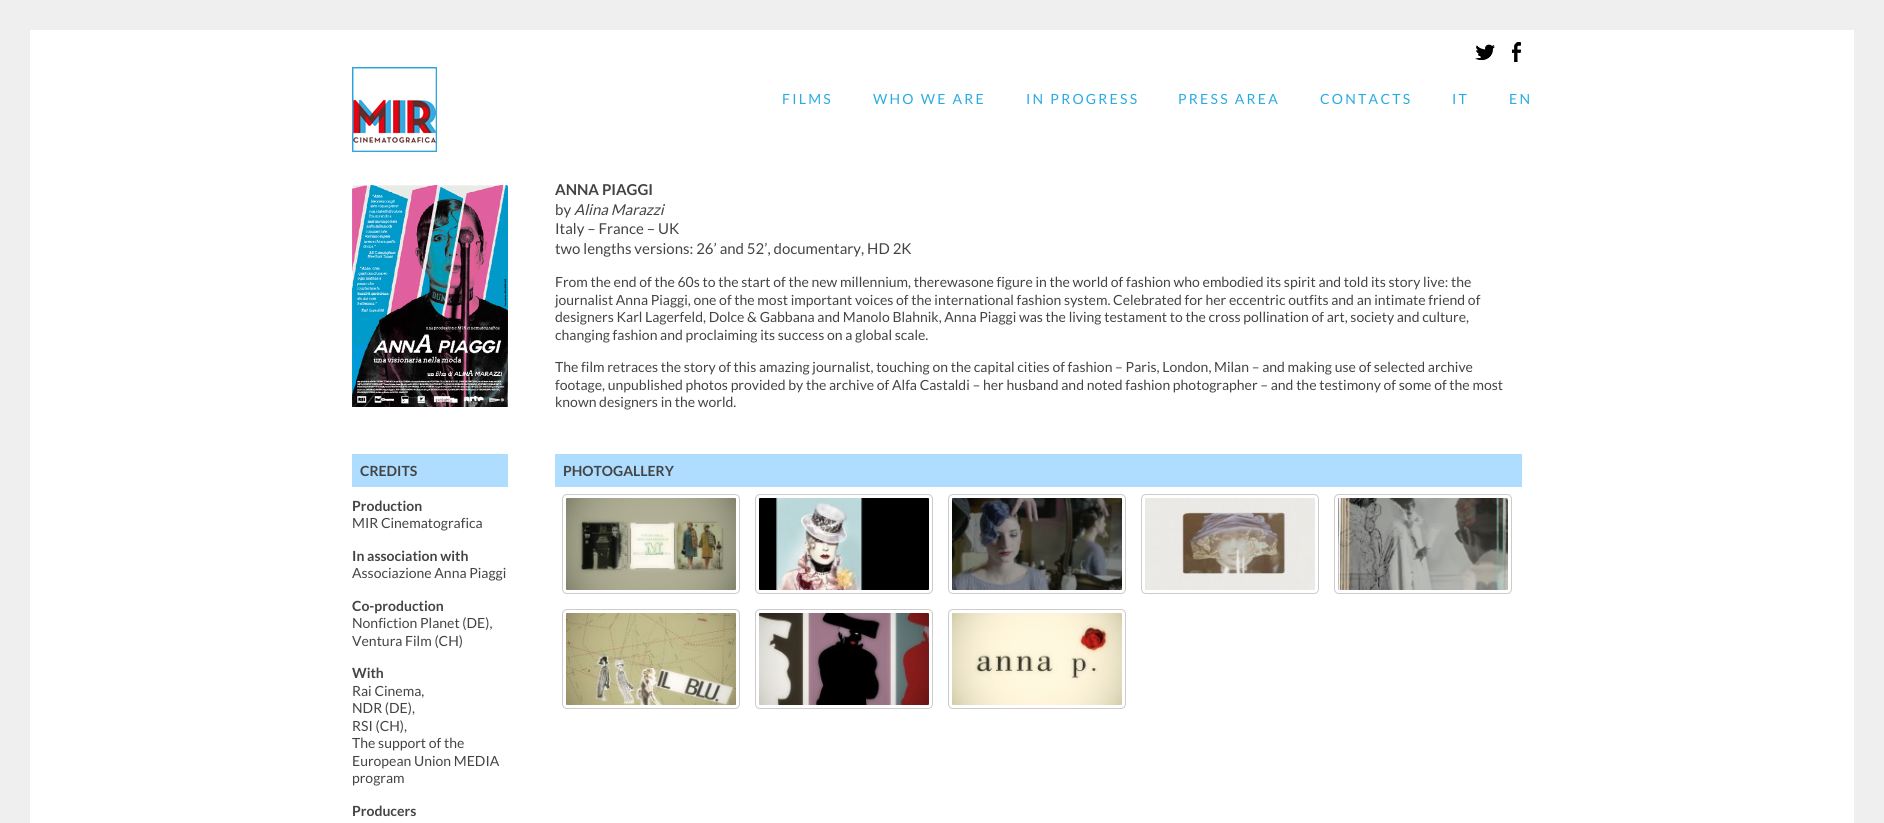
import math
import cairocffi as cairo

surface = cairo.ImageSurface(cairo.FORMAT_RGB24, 1884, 823)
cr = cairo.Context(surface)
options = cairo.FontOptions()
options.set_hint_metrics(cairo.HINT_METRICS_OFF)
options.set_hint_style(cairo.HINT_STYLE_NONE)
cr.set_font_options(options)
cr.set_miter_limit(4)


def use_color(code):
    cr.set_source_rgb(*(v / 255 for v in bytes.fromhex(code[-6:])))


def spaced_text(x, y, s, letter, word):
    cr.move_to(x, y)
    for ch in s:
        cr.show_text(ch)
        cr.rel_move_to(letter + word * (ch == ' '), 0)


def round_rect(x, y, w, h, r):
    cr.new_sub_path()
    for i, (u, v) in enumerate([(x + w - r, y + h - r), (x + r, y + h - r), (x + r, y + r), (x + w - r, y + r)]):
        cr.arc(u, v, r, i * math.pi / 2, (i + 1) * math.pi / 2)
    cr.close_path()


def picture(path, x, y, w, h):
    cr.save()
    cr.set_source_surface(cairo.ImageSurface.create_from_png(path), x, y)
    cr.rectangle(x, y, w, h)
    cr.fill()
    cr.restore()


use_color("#ffffff")
cr.paint()
cr.rectangle(15, 15, 1854, 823)
use_color("#efefef")
cr.set_line_width(30)
cr.stroke()
picture("img1.png", 1475, 44, 20, 16)
picture("img2.png", 1511, 42, 10, 20)
picture("img3.png", 352, 67, 85, 85)
cr.select_font_face("Lato")
cr.set_font_size(14)
use_color("#29abe2")
spaced_text(782, 104, "FILMS", 2.25, 0)
spaced_text(873, 104, "WHO WE ARE", 2.25, 0)
spaced_text(1026, 104, "IN PROGRESS", 2.25, 0)
spaced_text(1178, 104, "PRESS AREA", 2.25, 0)
spaced_text(1320, 104, "CONTACTS", 2.25, 0)
spaced_text(1452, 104, "IT", 2.25, 0)
spaced_text(1509, 104, "EN", 2.25, 0)
picture("img4.png", 352, 185, 156, 222)
cr.select_font_face("Lato", cairo.FONT_SLANT_NORMAL, cairo.FONT_WEIGHT_BOLD)
cr.set_font_size(15)
use_color("#444444")
cr.move_to(555, 195)
cr.show_text("ANNA PIAGGI")
cr.select_font_face("Lato")
cr.move_to(555, 215)
cr.show_text("by")
cr.select_font_face("Lato", cairo.FONT_SLANT_ITALIC)
cr.move_to(574, 215)
cr.show_text("Alina Marazzi")
cr.select_font_face("Lato")
cr.move_to(555, 234)
cr.show_text("Italy – France – UK")
cr.move_to(555, 254)
cr.show_text("two lengths versions: 26’ and 52’, documentary, HD 2K")
cr.set_font_size(14)
cr.move_to(555, 287)
cr.show_text("From the end of the 60s to the start of the new millennium, therewasone figure in the world of fashion who embodied its spirit and told its story live: the")
cr.move_to(555, 305)
cr.show_text("journalist Anna Piaggi, one of the most important voices of the international fashion system. Celebrated for her eccentric outfits and an intimate friend of")
cr.move_to(555, 322)
cr.show_text("designers Karl Lagerfeld, Dolce & Gabbana and Manolo Blahnik, Anna Piaggi was the living testament to the cross pollination of art, society and culture,")
cr.move_to(555, 340)
cr.show_text("changing fashion and proclaiming its success on a global scale.")
cr.move_to(555, 372)
cr.show_text("The film retraces the story of this amazing journalist, touching on the capital cities of fashion – Paris, London, Milan – and making use of selected archive")
cr.move_to(555, 390)
cr.show_text("footage, unpublished photos provided by the archive of Alfa Castaldi – her husband and noted fashion photographer – and the testimony of some of the most")
cr.move_to(555, 407)
cr.show_text("known designers in the world.")
use_color("#afddff")
cr.rectangle(352, 454, 156, 33)
cr.fill()
cr.select_font_face("Lato", cairo.FONT_SLANT_NORMAL, cairo.FONT_WEIGHT_BOLD)
use_color("#444444")
cr.move_to(360, 476)
cr.show_text("CREDITS")
cr.move_to(352, 511)
cr.show_text("Production")
cr.select_font_face("Lato")
cr.move_to(352, 528)
cr.show_text("MIR Cinematografica")
cr.select_font_face("Lato", cairo.FONT_SLANT_NORMAL, cairo.FONT_WEIGHT_BOLD)
cr.move_to(352, 561)
cr.show_text("In association with")
cr.select_font_face("Lato")
cr.move_to(352, 578)
cr.show_text("Associazione Anna Piaggi")
cr.select_font_face("Lato", cairo.FONT_SLANT_NORMAL, cairo.FONT_WEIGHT_BOLD)
cr.move_to(352, 611)
cr.show_text("Co-production")
cr.select_font_face("Lato")
cr.move_to(352, 628)
cr.show_text("Nonfiction Planet (DE),")
cr.move_to(352, 646)
cr.show_text("Ventura Film (CH)")
cr.select_font_face("Lato", cairo.FONT_SLANT_NORMAL, cairo.FONT_WEIGHT_BOLD)
cr.move_to(352, 678)
cr.show_text("With")
cr.select_font_face("Lato")
cr.move_to(352, 696)
cr.show_text("Rai Cinema,")
cr.move_to(352, 713)
cr.show_text("NDR (DE),")
cr.move_to(352, 731)
cr.show_text("RSI (CH),")
cr.move_to(352, 748)
cr.show_text("The support of the")
cr.move_to(352, 766)
cr.show_text("European Union MEDIA")
cr.move_to(352, 783)
cr.show_text("program")
cr.select_font_face("Lato", cairo.FONT_SLANT_NORMAL, cairo.FONT_WEIGHT_BOLD)
cr.move_to(352, 816)
cr.show_text("Producers")
use_color("#afddff")
cr.rectangle(555, 454, 967, 33)
cr.fill()
use_color("#444444")
cr.move_to(563, 476)
cr.show_text("PHOTOGALLERY")
round_rect(562.5, 494.5, 177, 99, 4.5)
use_color("#cccccc")
cr.set_line_width(1)
cr.stroke()
picture("img5.png", 566, 498, 170, 92)
round_rect(755.5, 494.5, 177, 99, 4.5)
cr.stroke()
picture("img6.png", 759, 498, 170, 92)
round_rect(948.5, 494.5, 177, 99, 4.5)
cr.stroke()
picture("img7.png", 952, 498, 170, 92)
round_rect(1141.5, 494.5, 177, 99, 4.5)
cr.stroke()
picture("img8.png", 1145, 498, 170, 92)
round_rect(1334.5, 494.5, 177, 99, 4.5)
cr.stroke()
picture("img9.png", 1338, 498, 170, 92)
round_rect(562.5, 609.5, 177, 99, 4.5)
cr.stroke()
picture("img10.png", 566, 613, 170, 92)
round_rect(755.5, 609.5, 177, 99, 4.5)
cr.stroke()
picture("img11.png", 759, 613, 170, 92)
round_rect(948.5, 609.5, 177, 99, 4.5)
cr.stroke()
picture("img12.png", 952, 613, 170, 92)
surface.write_to_png("result.png")
